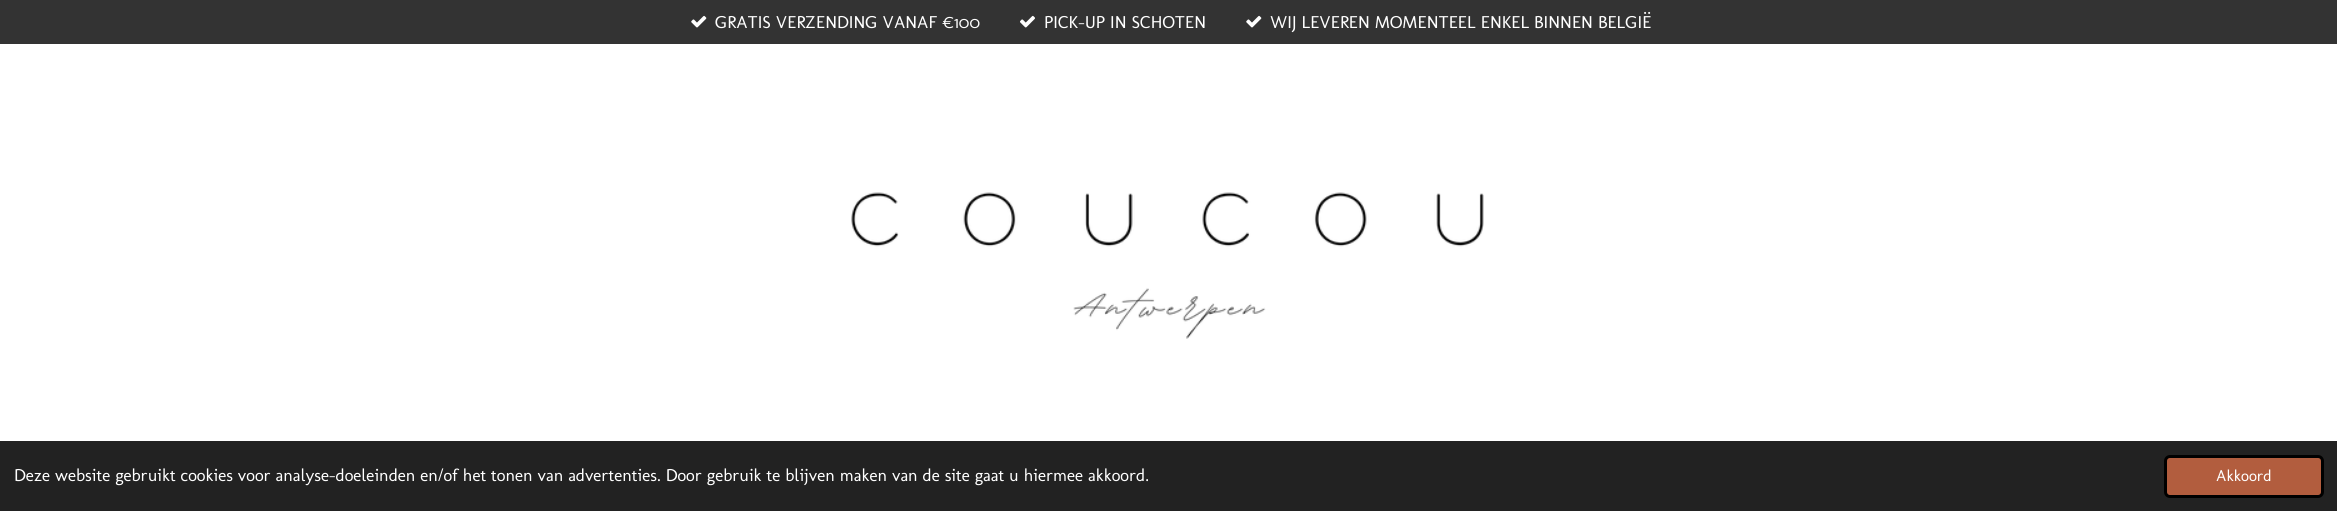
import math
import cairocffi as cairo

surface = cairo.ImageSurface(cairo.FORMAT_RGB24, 2337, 511)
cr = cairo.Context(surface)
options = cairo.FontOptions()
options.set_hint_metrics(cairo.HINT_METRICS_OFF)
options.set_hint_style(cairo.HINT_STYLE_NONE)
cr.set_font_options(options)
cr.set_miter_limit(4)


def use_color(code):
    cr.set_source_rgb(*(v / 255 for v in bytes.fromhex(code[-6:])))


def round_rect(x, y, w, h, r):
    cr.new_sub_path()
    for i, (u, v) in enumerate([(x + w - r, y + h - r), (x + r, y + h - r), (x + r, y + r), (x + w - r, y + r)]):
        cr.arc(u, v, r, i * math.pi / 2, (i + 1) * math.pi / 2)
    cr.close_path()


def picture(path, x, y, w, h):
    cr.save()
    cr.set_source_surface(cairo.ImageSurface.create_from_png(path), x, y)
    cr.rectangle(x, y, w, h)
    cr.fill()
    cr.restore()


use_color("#ffffff")
cr.paint()
use_color("#333333")
cr.rectangle(0, 0, 2337, 44)
cr.fill()
picture("img1.png", 691, 15, 16, 13)
cr.select_font_face("Molengo")
cr.set_font_size(17.5)
use_color("#ffffff")
cr.move_to(715, 28)
cr.show_text("GRATIS VERZENDING VANAF €100")
picture("img2.png", 1020, 15, 15, 13)
cr.move_to(1044, 28)
cr.show_text("PICK-UP IN SCHOTEN")
picture("img1.png", 1246, 15, 16, 13)
cr.move_to(1270, 28)
cr.show_text("WIJ LEVEREN MOMENTEEL ENKEL BINNEN BELGIË")
picture("img3.png", 851, 192, 633, 147)
use_color("#222222")
cr.rectangle(0, 441, 2337, 70)
cr.fill()
use_color("#ffffff")
cr.move_to(14, 481)
cr.show_text("Deze website gebruikt cookies voor analyse-doeleinden en/of het tonen van advertenties. Door gebruik te blijven maken van de site gaat u hiermee akkoord.")
use_color("#b25d3e")
round_rect(2165.5, 456.5, 157, 40, 4.5)
cr.fill_preserve()
use_color("#000000")
cr.set_line_width(3)
cr.stroke()
cr.set_font_size(16)
use_color("#ffffff")
cr.move_to(2216, 481)
cr.show_text("Akkoord")
surface.write_to_png("result.png")
